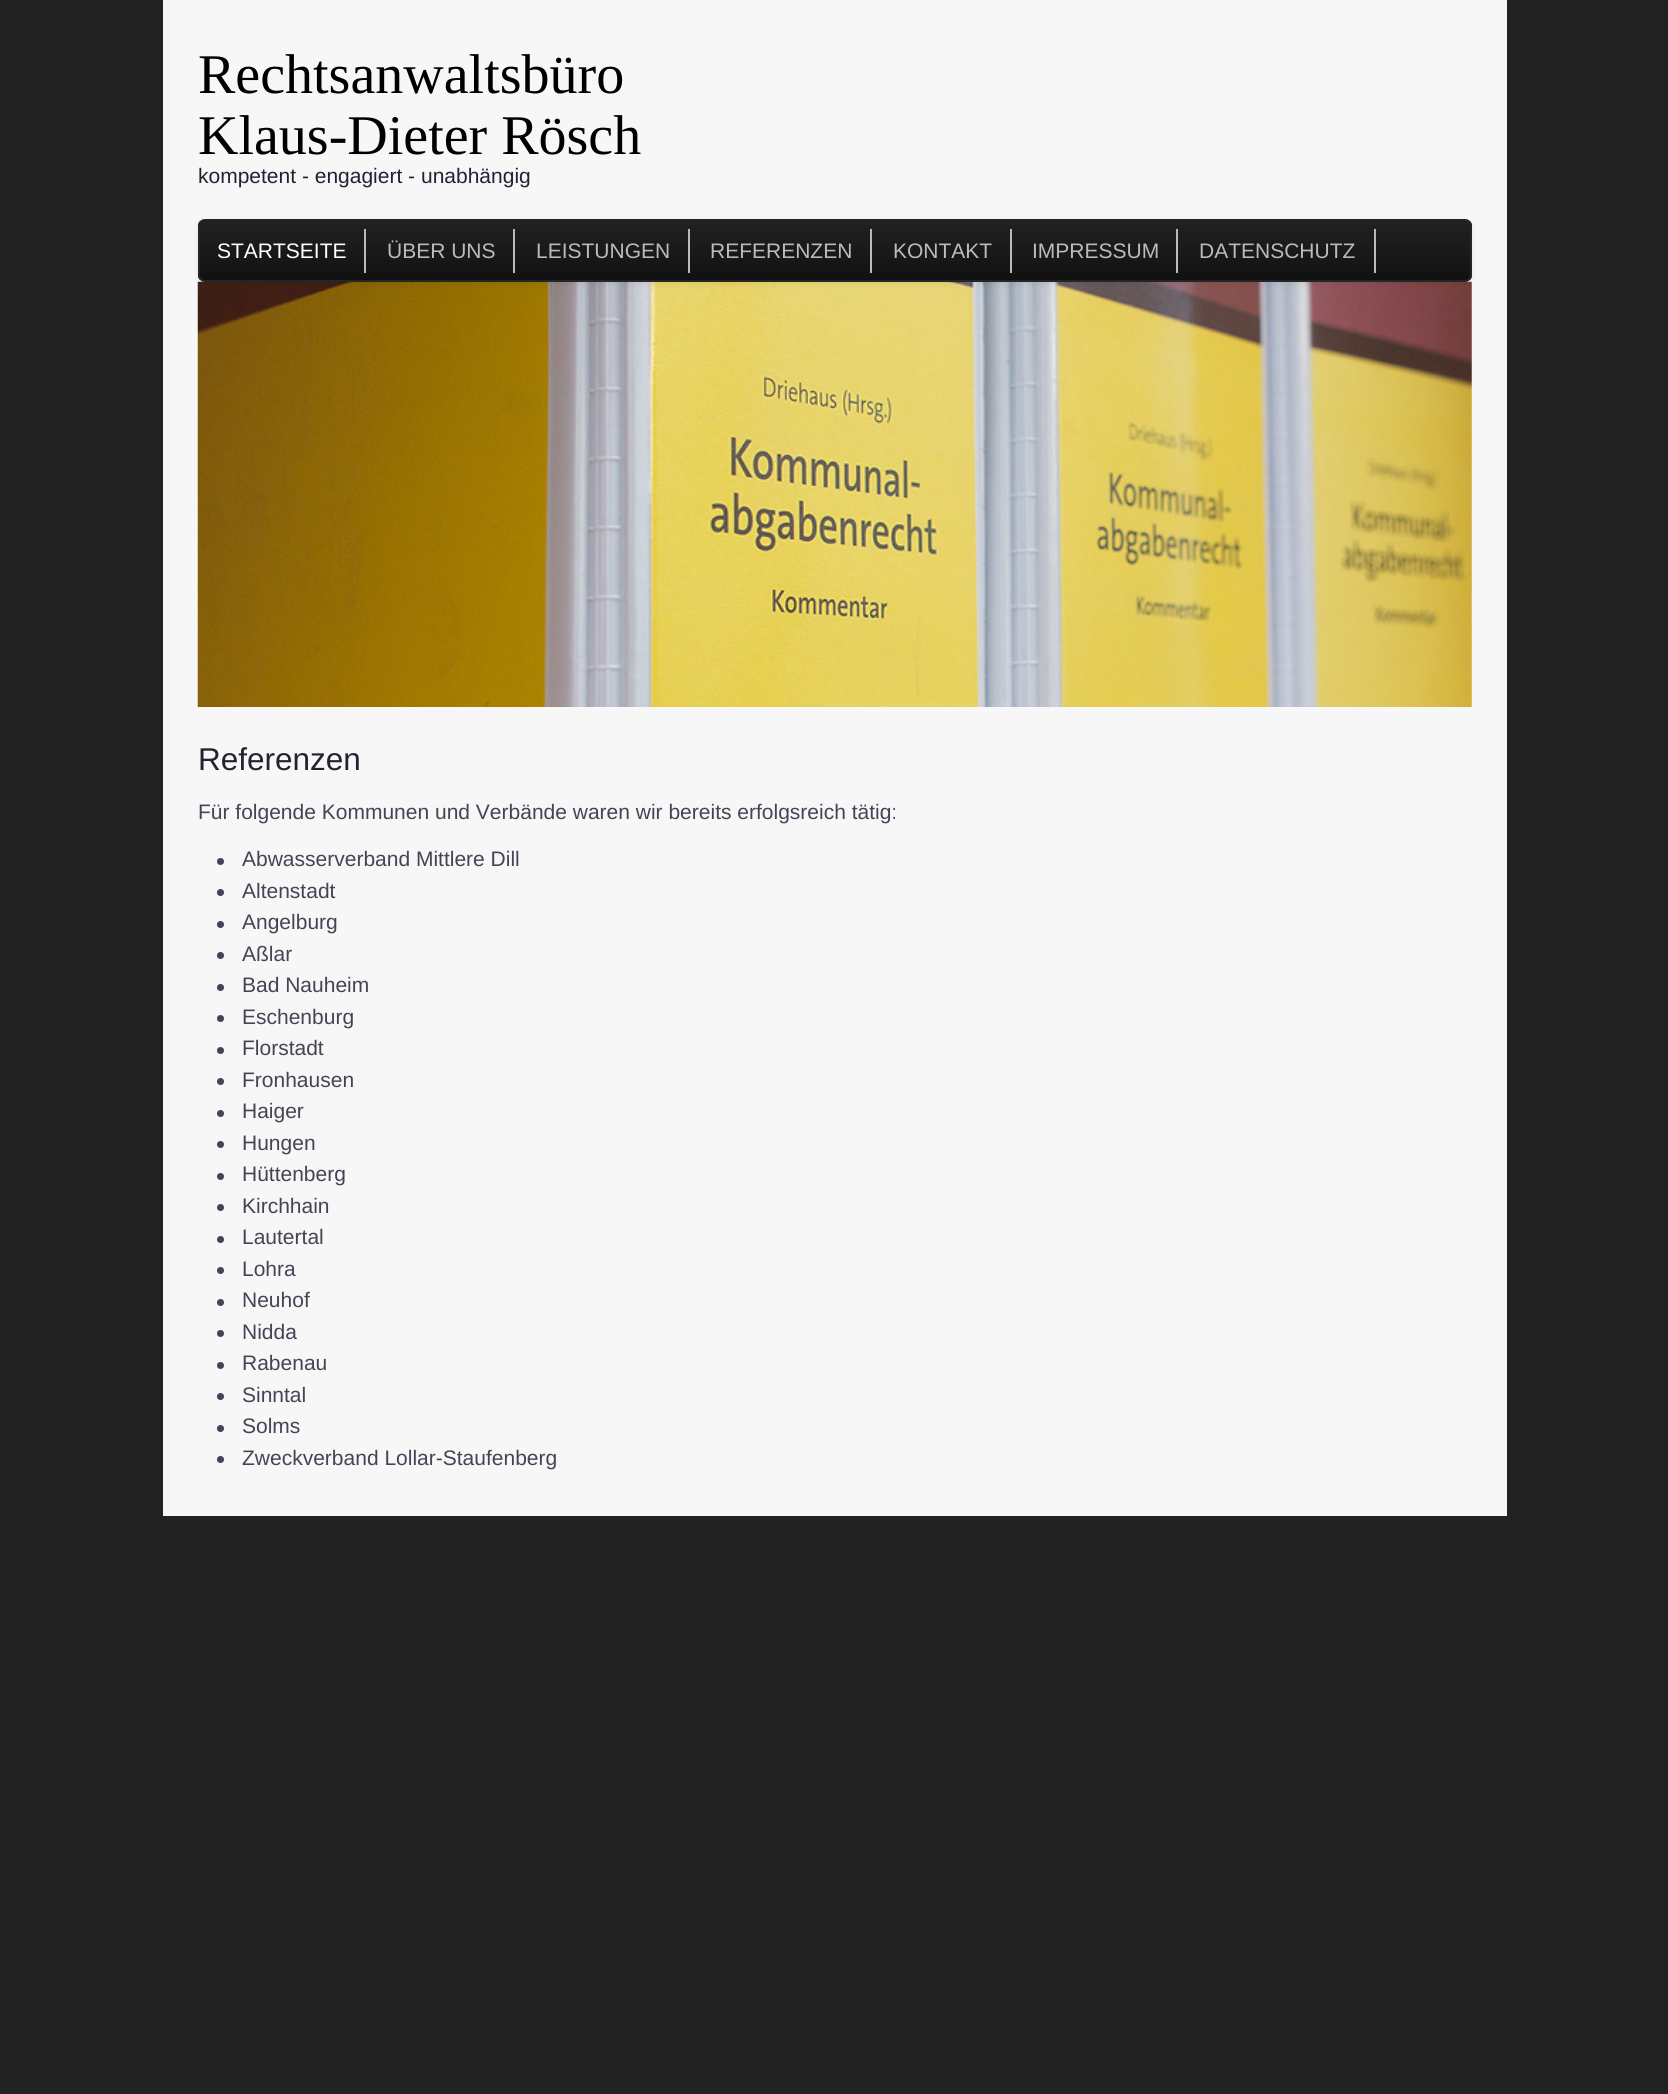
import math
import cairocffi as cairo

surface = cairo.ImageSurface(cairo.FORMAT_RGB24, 1668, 2094)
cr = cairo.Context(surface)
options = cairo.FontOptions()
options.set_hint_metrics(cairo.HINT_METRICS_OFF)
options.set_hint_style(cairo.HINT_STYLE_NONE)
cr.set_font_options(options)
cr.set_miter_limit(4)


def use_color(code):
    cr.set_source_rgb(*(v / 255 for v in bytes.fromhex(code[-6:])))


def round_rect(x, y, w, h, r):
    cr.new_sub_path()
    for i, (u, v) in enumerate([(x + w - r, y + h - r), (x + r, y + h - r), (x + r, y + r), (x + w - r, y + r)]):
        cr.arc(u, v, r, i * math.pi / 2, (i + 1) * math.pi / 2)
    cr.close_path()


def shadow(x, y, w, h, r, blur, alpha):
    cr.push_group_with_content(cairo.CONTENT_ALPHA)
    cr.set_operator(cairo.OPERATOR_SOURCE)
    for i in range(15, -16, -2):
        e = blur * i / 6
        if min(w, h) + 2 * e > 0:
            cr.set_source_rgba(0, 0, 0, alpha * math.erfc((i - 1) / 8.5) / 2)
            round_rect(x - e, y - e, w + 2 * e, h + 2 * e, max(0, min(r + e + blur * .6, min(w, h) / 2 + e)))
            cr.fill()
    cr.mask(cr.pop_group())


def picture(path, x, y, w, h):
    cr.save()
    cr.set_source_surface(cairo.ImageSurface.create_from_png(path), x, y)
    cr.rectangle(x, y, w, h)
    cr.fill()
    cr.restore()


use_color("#222222")
cr.paint()
use_color("#f7f7f7")
cr.rectangle(163, 0, 1344, 1516)
cr.fill()
cr.select_font_face("Liberation Serif")
cr.set_font_size(56)
use_color("#000000")
cr.move_to(198, 93)
cr.show_text("Rechtsanwaltsbüro")
cr.move_to(198, 154)
cr.show_text("Klaus-Dieter Rösch")
cr.select_font_face("Liberation Sans")
cr.set_font_size(21)
use_color("#222233")
cr.move_to(198, 183)
cr.show_text("kompetent - engagiert - unabhängig")
picture("img1.png", 197, 281, 1275, 426)
use_color("#000000")
shadow(198, 221, 1274, 63, 7, 3.5, 0.07)
cr.save()
round_rect(198, 219, 1274, 63, 7)
cr.clip()
gradient = cairo.LinearGradient(835, 220, 835, 280)
gradient.add_color_stop_rgba(0, 0.133, 0.133, 0.133, 1)
gradient.add_color_stop_rgba(1, 0.067, 0.067, 0.067, 1)
cr.set_source(gradient)
cr.rectangle(198, 221, 1274, 59)
cr.fill()
cr.restore()
round_rect(199, 220, 1272, 61, 6)
use_color("#252525")
cr.stroke()
use_color("#bbbbbb")
cr.rectangle(364, 229, 2, 44)
cr.fill()
use_color("#ffffff")
cr.move_to(217, 258)
cr.show_text("STARTSEITE")
use_color("#bbbbbb")
cr.rectangle(513, 229, 2, 44)
cr.fill()
cr.move_to(387, 258)
cr.show_text("ÜBER UNS")
cr.rectangle(688, 229, 2, 44)
cr.fill()
cr.move_to(536, 258)
cr.show_text("LEISTUNGEN")
cr.rectangle(870, 229, 2, 44)
cr.fill()
cr.move_to(710, 258)
cr.show_text("REFERENZEN")
cr.rectangle(1010, 229, 2, 44)
cr.fill()
cr.move_to(893, 258)
cr.show_text("KONTAKT")
cr.rectangle(1176, 229, 2, 44)
cr.fill()
cr.move_to(1032, 258)
cr.show_text("IMPRESSUM")
cr.rectangle(1374, 229, 2, 44)
cr.fill()
cr.move_to(1199, 258)
cr.show_text("DATENSCHUTZ")
cr.set_font_size(31.5)
use_color("#222233")
cr.move_to(198, 770)
cr.show_text("Referenzen")
cr.set_font_size(21)
use_color("#444455")
cr.move_to(198, 819)
cr.show_text("Für folgende Kommunen und Verbände waren wir bereits erfolgsreich tätig:")
cr.new_path()
cr.arc(220.5, 861.5, 3.5, 0, 2 * math.pi)
cr.fill()
cr.move_to(242, 866)
cr.show_text("Abwasserverband Mittlere Dill")
cr.new_path()
cr.arc(220.5, 892.5, 3.5, 0, 2 * math.pi)
cr.fill()
cr.move_to(242, 898)
cr.show_text("Altenstadt")
cr.new_path()
cr.arc(220.5, 924.5, 3.5, 0, 2 * math.pi)
cr.fill()
cr.move_to(242, 929)
cr.show_text("Angelburg")
cr.new_path()
cr.arc(220.5, 955.5, 3.5, 0, 2 * math.pi)
cr.fill()
cr.move_to(242, 961)
cr.show_text("Aßlar")
cr.new_path()
cr.arc(220.5, 987.5, 3.5, 0, 2 * math.pi)
cr.fill()
cr.move_to(242, 992)
cr.show_text("Bad Nauheim")
cr.new_path()
cr.arc(220.5, 1018.5, 3.5, 0, 2 * math.pi)
cr.fill()
cr.move_to(242, 1024)
cr.show_text("Eschenburg")
cr.new_path()
cr.arc(220.5, 1050.5, 3.5, 0, 2 * math.pi)
cr.fill()
cr.move_to(242, 1055)
cr.show_text("Florstadt")
cr.new_path()
cr.arc(220.5, 1081.5, 3.5, 0, 2 * math.pi)
cr.fill()
cr.move_to(242, 1087)
cr.show_text("Fronhausen")
cr.new_path()
cr.arc(220.5, 1113.5, 3.5, 0, 2 * math.pi)
cr.fill()
cr.move_to(242, 1118)
cr.show_text("Haiger")
cr.new_path()
cr.arc(220.5, 1144.5, 3.5, 0, 2 * math.pi)
cr.fill()
cr.move_to(242, 1150)
cr.show_text("Hungen")
cr.new_path()
cr.arc(220.5, 1176.5, 3.5, 0, 2 * math.pi)
cr.fill()
cr.move_to(242, 1181)
cr.show_text("Hüttenberg")
cr.new_path()
cr.arc(220.5, 1207.5, 3.5, 0, 2 * math.pi)
cr.fill()
cr.move_to(242, 1213)
cr.show_text("Kirchhain")
cr.new_path()
cr.arc(220.5, 1239.5, 3.5, 0, 2 * math.pi)
cr.fill()
cr.move_to(242, 1244)
cr.show_text("Lautertal")
cr.new_path()
cr.arc(220.5, 1270.5, 3.5, 0, 2 * math.pi)
cr.fill()
cr.move_to(242, 1276)
cr.show_text("Lohra")
cr.new_path()
cr.arc(220.5, 1302.5, 3.5, 0, 2 * math.pi)
cr.fill()
cr.move_to(242, 1307)
cr.show_text("Neuhof")
cr.new_path()
cr.arc(220.5, 1333.5, 3.5, 0, 2 * math.pi)
cr.fill()
cr.move_to(242, 1339)
cr.show_text("Nidda")
cr.new_path()
cr.arc(220.5, 1365.5, 3.5, 0, 2 * math.pi)
cr.fill()
cr.move_to(242, 1370)
cr.show_text("Rabenau")
cr.new_path()
cr.arc(220.5, 1396.5, 3.5, 0, 2 * math.pi)
cr.fill()
cr.move_to(242, 1402)
cr.show_text("Sinntal")
cr.new_path()
cr.arc(220.5, 1428.5, 3.5, 0, 2 * math.pi)
cr.fill()
cr.move_to(242, 1433)
cr.show_text("Solms")
cr.new_path()
cr.arc(220.5, 1459.5, 3.5, 0, 2 * math.pi)
cr.fill()
cr.move_to(242, 1465)
cr.show_text("Zweckverband Lollar-Staufenberg")
surface.write_to_png("result.png")
